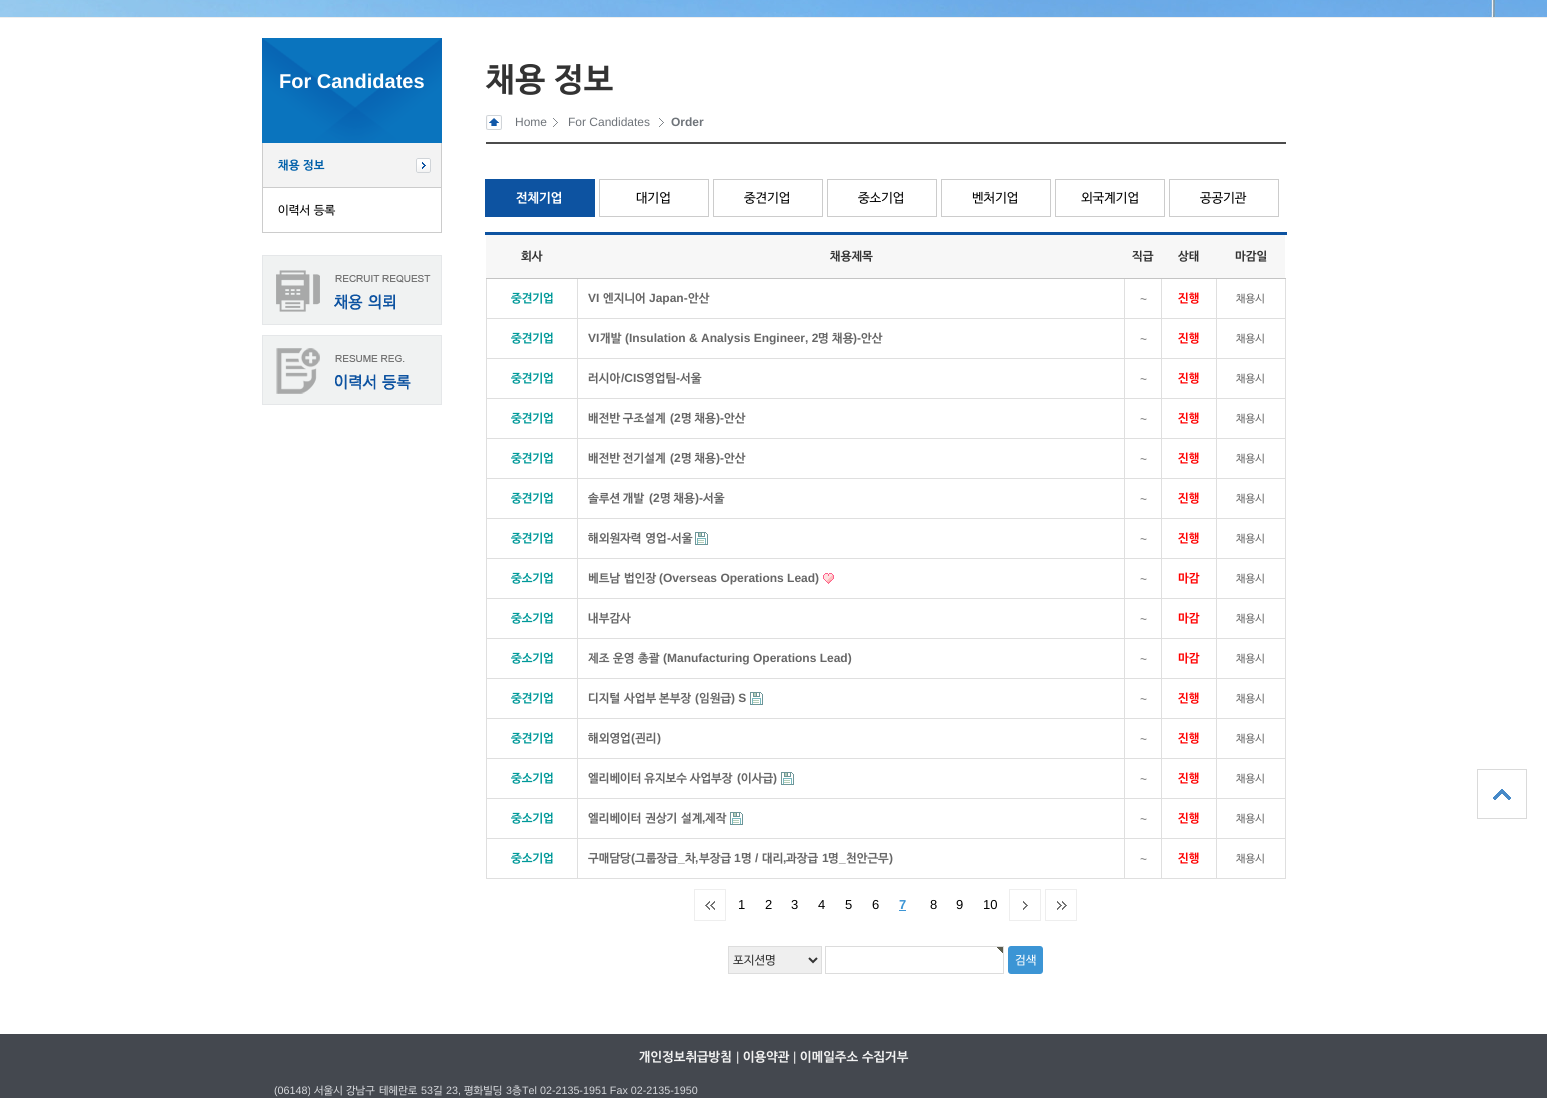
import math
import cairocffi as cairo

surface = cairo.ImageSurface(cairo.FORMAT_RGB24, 1547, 1098)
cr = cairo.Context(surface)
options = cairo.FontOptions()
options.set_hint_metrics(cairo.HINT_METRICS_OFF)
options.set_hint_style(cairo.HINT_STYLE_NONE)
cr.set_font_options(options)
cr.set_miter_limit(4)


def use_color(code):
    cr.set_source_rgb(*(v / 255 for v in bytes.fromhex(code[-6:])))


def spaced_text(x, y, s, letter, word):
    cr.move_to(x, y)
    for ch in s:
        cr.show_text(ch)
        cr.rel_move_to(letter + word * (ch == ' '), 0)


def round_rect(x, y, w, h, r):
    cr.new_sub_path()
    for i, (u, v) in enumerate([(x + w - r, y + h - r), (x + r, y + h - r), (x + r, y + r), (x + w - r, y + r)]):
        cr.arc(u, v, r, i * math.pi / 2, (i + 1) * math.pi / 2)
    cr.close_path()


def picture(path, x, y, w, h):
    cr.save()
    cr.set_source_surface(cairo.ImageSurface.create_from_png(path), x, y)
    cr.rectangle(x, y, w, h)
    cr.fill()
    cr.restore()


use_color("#ffffff")
cr.paint()
picture("img1.png", 0, 0, 1547, 17)
use_color("#eeeeee")
cr.rectangle(0, 17, 1547, 1)
cr.fill()
picture("img2.png", 262, 38, 180, 105)
cr.select_font_face("Liberation Sans", cairo.FONT_SLANT_NORMAL, cairo.FONT_WEIGHT_BOLD)
cr.set_font_size(20)
use_color("#ffffff")
cr.move_to(279, 88)
cr.show_text("For Candidates")
use_color("#cccccc")
cr.rectangle(441, 143, 1, 90)
cr.fill()
cr.rectangle(262, 187, 180, 1)
cr.fill()
cr.rectangle(262, 143, 1, 45)
cr.fill()
use_color("#f3f3f3")
cr.rectangle(263, 143, 178, 44)
cr.fill()
picture("img3.png", 416, 158, 15, 15)
cr.select_font_face("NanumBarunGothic", cairo.FONT_SLANT_NORMAL, cairo.FONT_WEIGHT_BOLD)
cr.set_font_size(12)
use_color("#0060aa")
spaced_text(278, 169, "채용 정보", 0, 1)
use_color("#cccccc")
cr.rectangle(262, 232, 180, 1)
cr.fill()
cr.rectangle(262, 188, 1, 45)
cr.fill()
cr.select_font_face("NanumBarunGothic")
use_color("#000000")
spaced_text(278, 214, "이력서 등록", 0, 1)
picture("img4.png", 262, 255, 180, 70)
picture("img5.png", 262, 335, 180, 70)
cr.select_font_face("NanumBarunGothic", cairo.FONT_SLANT_NORMAL, cairo.FONT_WEIGHT_BOLD)
cr.set_font_size(33)
use_color("#333333")
spaced_text(486, 90, "채용 정보", 0, 2)
picture("img6.png", 486, 115, 16, 15)
use_color("#4c4c4c")
cr.rectangle(486, 142, 800, 2)
cr.fill()
cr.select_font_face("Liberation Sans")
cr.set_font_size(12)
use_color("#6e7379")
cr.move_to(515, 126)
cr.show_text("Home")
picture("img7.png", 553, 118, 5, 9)
cr.move_to(568, 126)
cr.show_text("For Candidates")
picture("img7.png", 659, 118, 5, 9)
cr.select_font_face("Liberation Sans", cairo.FONT_SLANT_NORMAL, cairo.FONT_WEIGHT_BOLD)
cr.move_to(671, 126)
cr.show_text("Order")
use_color("#0d53a1")
cr.rectangle(485, 179, 110, 38)
cr.fill()
cr.select_font_face("NanumBarunGothic", cairo.FONT_SLANT_NORMAL, cairo.FONT_WEIGHT_BOLD)
cr.set_font_size(13)
use_color("#ffffff")
cr.move_to(516, 202)
cr.show_text("전체기업")
cr.rectangle(599.5, 179.5, 109, 37)
use_color("#cccccc")
cr.set_line_width(1)
cr.stroke()
cr.select_font_face("NanumBarunGothic")
use_color("#000000")
cr.move_to(636, 202)
cr.show_text("대기업")
cr.rectangle(713.5, 179.5, 109, 37)
use_color("#cccccc")
cr.stroke()
use_color("#000000")
cr.move_to(744, 202)
cr.show_text("중견기업")
cr.rectangle(827.5, 179.5, 109, 37)
use_color("#cccccc")
cr.stroke()
use_color("#000000")
cr.move_to(858, 202)
cr.show_text("중소기업")
cr.rectangle(941.5, 179.5, 109, 37)
use_color("#cccccc")
cr.stroke()
use_color("#000000")
cr.move_to(972, 202)
cr.show_text("벤처기업")
cr.rectangle(1055.5, 179.5, 109, 37)
use_color("#cccccc")
cr.stroke()
use_color("#000000")
cr.move_to(1081, 202)
cr.show_text("외국계기업")
cr.rectangle(1169.5, 179.5, 109, 37)
use_color("#cccccc")
cr.stroke()
use_color("#000000")
cr.move_to(1200, 202)
cr.show_text("공공기관")
use_color("#f7f7f7")
cr.rectangle(486, 235, 799, 43)
cr.fill()
cr.select_font_face("NanumBarunGothic", cairo.FONT_SLANT_NORMAL, cairo.FONT_WEIGHT_BOLD)
cr.set_font_size(12)
use_color("#333333")
cr.move_to(521, 260)
cr.show_text("회사")
cr.move_to(830, 260)
cr.show_text("채용제목")
cr.move_to(1132, 260)
cr.show_text("직급")
cr.move_to(1178, 260)
cr.show_text("상태")
use_color("#dfdfdf")
cr.rectangle(1216, 318, 70, 1)
cr.fill()
cr.rectangle(1216, 358, 70, 1)
cr.fill()
cr.rectangle(1216, 398, 70, 1)
cr.fill()
cr.rectangle(1216, 438, 70, 1)
cr.fill()
cr.rectangle(1216, 478, 70, 1)
cr.fill()
cr.rectangle(1216, 518, 70, 1)
cr.fill()
cr.rectangle(1216, 558, 70, 1)
cr.fill()
cr.rectangle(1216, 598, 70, 1)
cr.fill()
cr.rectangle(1216, 638, 70, 1)
cr.fill()
cr.rectangle(1216, 678, 70, 1)
cr.fill()
cr.rectangle(1216, 718, 70, 1)
cr.fill()
cr.rectangle(1216, 758, 70, 1)
cr.fill()
cr.rectangle(1216, 798, 70, 1)
cr.fill()
cr.rectangle(1216, 838, 70, 1)
cr.fill()
cr.rectangle(1285, 838, 1, 41)
cr.fill()
cr.rectangle(1216, 878, 70, 1)
cr.fill()
cr.rectangle(1216, 838, 1, 41)
cr.fill()
cr.rectangle(1161, 838, 56, 1)
cr.fill()
cr.rectangle(1216, 798, 1, 41)
cr.fill()
cr.rectangle(1161, 798, 56, 1)
cr.fill()
cr.rectangle(1216, 758, 1, 41)
cr.fill()
cr.rectangle(1161, 758, 56, 1)
cr.fill()
cr.rectangle(1216, 718, 1, 41)
cr.fill()
cr.rectangle(1161, 718, 56, 1)
cr.fill()
cr.rectangle(1216, 678, 1, 41)
cr.fill()
cr.rectangle(1161, 678, 56, 1)
cr.fill()
cr.rectangle(1216, 638, 1, 41)
cr.fill()
cr.rectangle(1161, 638, 56, 1)
cr.fill()
cr.rectangle(1216, 598, 1, 41)
cr.fill()
cr.rectangle(1161, 598, 56, 1)
cr.fill()
cr.rectangle(1216, 558, 1, 41)
cr.fill()
cr.rectangle(1161, 558, 56, 1)
cr.fill()
cr.rectangle(1216, 518, 1, 41)
cr.fill()
cr.rectangle(1161, 518, 56, 1)
cr.fill()
cr.rectangle(1216, 478, 1, 41)
cr.fill()
cr.rectangle(1161, 478, 56, 1)
cr.fill()
cr.rectangle(1216, 438, 1, 41)
cr.fill()
cr.rectangle(1161, 438, 56, 1)
cr.fill()
cr.rectangle(1216, 398, 1, 41)
cr.fill()
cr.rectangle(1161, 398, 56, 1)
cr.fill()
cr.rectangle(1216, 358, 1, 41)
cr.fill()
cr.rectangle(1161, 358, 56, 1)
cr.fill()
cr.rectangle(1216, 318, 1, 41)
cr.fill()
cr.rectangle(1161, 318, 56, 1)
cr.fill()
cr.rectangle(1161, 878, 56, 1)
cr.fill()
cr.rectangle(1161, 838, 1, 41)
cr.fill()
cr.rectangle(1124, 838, 38, 1)
cr.fill()
cr.rectangle(1161, 798, 1, 41)
cr.fill()
cr.rectangle(1124, 798, 38, 1)
cr.fill()
cr.rectangle(1161, 758, 1, 41)
cr.fill()
cr.rectangle(1124, 758, 38, 1)
cr.fill()
cr.rectangle(1161, 718, 1, 41)
cr.fill()
cr.rectangle(1124, 718, 38, 1)
cr.fill()
cr.rectangle(1161, 678, 1, 41)
cr.fill()
cr.rectangle(1124, 678, 38, 1)
cr.fill()
cr.rectangle(1161, 638, 1, 41)
cr.fill()
cr.rectangle(1124, 638, 38, 1)
cr.fill()
cr.rectangle(1161, 598, 1, 41)
cr.fill()
cr.rectangle(1124, 598, 38, 1)
cr.fill()
cr.rectangle(1161, 558, 1, 41)
cr.fill()
cr.rectangle(1124, 558, 38, 1)
cr.fill()
cr.rectangle(1161, 518, 1, 41)
cr.fill()
cr.rectangle(1124, 518, 38, 1)
cr.fill()
cr.rectangle(1161, 478, 1, 41)
cr.fill()
cr.rectangle(1124, 478, 38, 1)
cr.fill()
cr.rectangle(1161, 438, 1, 41)
cr.fill()
cr.rectangle(1124, 438, 38, 1)
cr.fill()
cr.rectangle(1161, 398, 1, 41)
cr.fill()
cr.rectangle(1124, 398, 38, 1)
cr.fill()
cr.rectangle(1161, 358, 1, 41)
cr.fill()
cr.rectangle(1124, 358, 38, 1)
cr.fill()
cr.rectangle(1161, 318, 1, 41)
cr.fill()
cr.rectangle(1124, 318, 38, 1)
cr.fill()
cr.rectangle(1124, 878, 38, 1)
cr.fill()
cr.rectangle(1124, 838, 1, 41)
cr.fill()
cr.rectangle(577, 838, 548, 1)
cr.fill()
cr.rectangle(1124, 798, 1, 41)
cr.fill()
cr.rectangle(577, 798, 548, 1)
cr.fill()
cr.rectangle(1124, 758, 1, 41)
cr.fill()
cr.rectangle(577, 758, 548, 1)
cr.fill()
cr.rectangle(1124, 718, 1, 41)
cr.fill()
cr.rectangle(577, 718, 548, 1)
cr.fill()
cr.rectangle(1124, 678, 1, 41)
cr.fill()
cr.rectangle(577, 678, 548, 1)
cr.fill()
cr.rectangle(1124, 638, 1, 41)
cr.fill()
cr.rectangle(577, 638, 548, 1)
cr.fill()
cr.rectangle(1124, 598, 1, 41)
cr.fill()
cr.rectangle(577, 598, 548, 1)
cr.fill()
cr.rectangle(1124, 558, 1, 41)
cr.fill()
cr.rectangle(577, 558, 548, 1)
cr.fill()
cr.rectangle(1124, 518, 1, 41)
cr.fill()
cr.rectangle(577, 518, 548, 1)
cr.fill()
cr.rectangle(1124, 478, 1, 41)
cr.fill()
cr.rectangle(577, 478, 548, 1)
cr.fill()
cr.rectangle(1124, 438, 1, 41)
cr.fill()
cr.rectangle(577, 438, 548, 1)
cr.fill()
cr.rectangle(1124, 398, 1, 41)
cr.fill()
cr.rectangle(577, 398, 548, 1)
cr.fill()
cr.rectangle(1124, 358, 1, 41)
cr.fill()
cr.rectangle(577, 358, 548, 1)
cr.fill()
cr.rectangle(1124, 318, 1, 41)
cr.fill()
cr.rectangle(577, 318, 548, 1)
cr.fill()
cr.rectangle(577, 878, 548, 1)
cr.fill()
cr.rectangle(577, 838, 1, 41)
cr.fill()
cr.rectangle(486, 838, 92, 1)
cr.fill()
cr.rectangle(577, 798, 1, 41)
cr.fill()
cr.rectangle(486, 798, 92, 1)
cr.fill()
cr.rectangle(577, 758, 1, 41)
cr.fill()
cr.rectangle(486, 758, 92, 1)
cr.fill()
cr.rectangle(577, 718, 1, 41)
cr.fill()
cr.rectangle(486, 718, 92, 1)
cr.fill()
cr.rectangle(577, 678, 1, 41)
cr.fill()
cr.rectangle(486, 678, 92, 1)
cr.fill()
cr.rectangle(577, 638, 1, 41)
cr.fill()
cr.rectangle(486, 638, 92, 1)
cr.fill()
cr.rectangle(577, 598, 1, 41)
cr.fill()
cr.rectangle(486, 598, 92, 1)
cr.fill()
cr.rectangle(577, 558, 1, 41)
cr.fill()
cr.rectangle(486, 558, 92, 1)
cr.fill()
cr.rectangle(577, 518, 1, 41)
cr.fill()
cr.rectangle(486, 518, 92, 1)
cr.fill()
cr.rectangle(577, 478, 1, 41)
cr.fill()
cr.rectangle(486, 478, 92, 1)
cr.fill()
cr.rectangle(577, 438, 1, 41)
cr.fill()
cr.rectangle(486, 438, 92, 1)
cr.fill()
cr.rectangle(577, 398, 1, 41)
cr.fill()
cr.rectangle(486, 398, 92, 1)
cr.fill()
cr.rectangle(577, 358, 1, 41)
cr.fill()
cr.rectangle(486, 358, 92, 1)
cr.fill()
cr.rectangle(577, 318, 1, 41)
cr.fill()
cr.rectangle(486, 318, 92, 1)
cr.fill()
cr.rectangle(577, 278, 1, 41)
cr.fill()
cr.rectangle(1124, 278, 1, 41)
cr.fill()
cr.rectangle(1161, 278, 1, 41)
cr.fill()
cr.rectangle(1216, 278, 1, 41)
cr.fill()
cr.rectangle(486, 878, 92, 1)
cr.fill()
cr.rectangle(486, 838, 1, 41)
cr.fill()
cr.rectangle(486, 798, 1, 41)
cr.fill()
cr.rectangle(486, 758, 1, 41)
cr.fill()
cr.rectangle(486, 718, 1, 41)
cr.fill()
cr.rectangle(486, 678, 1, 41)
cr.fill()
cr.rectangle(486, 638, 1, 41)
cr.fill()
cr.rectangle(486, 598, 1, 41)
cr.fill()
cr.rectangle(486, 558, 1, 41)
cr.fill()
cr.rectangle(486, 518, 1, 41)
cr.fill()
cr.rectangle(486, 478, 1, 41)
cr.fill()
cr.rectangle(486, 438, 1, 41)
cr.fill()
cr.rectangle(486, 398, 1, 41)
cr.fill()
cr.rectangle(486, 358, 1, 41)
cr.fill()
cr.rectangle(486, 278, 1, 81)
cr.fill()
cr.rectangle(1285, 798, 1, 41)
cr.fill()
cr.rectangle(1285, 758, 1, 41)
cr.fill()
cr.rectangle(1285, 718, 1, 41)
cr.fill()
cr.rectangle(1285, 678, 1, 41)
cr.fill()
cr.rectangle(1285, 638, 1, 41)
cr.fill()
cr.rectangle(1285, 598, 1, 41)
cr.fill()
cr.rectangle(1285, 558, 1, 41)
cr.fill()
cr.rectangle(1285, 518, 1, 41)
cr.fill()
cr.rectangle(1285, 478, 1, 41)
cr.fill()
cr.rectangle(1285, 438, 1, 41)
cr.fill()
cr.rectangle(1285, 398, 1, 41)
cr.fill()
cr.rectangle(1285, 358, 1, 41)
cr.fill()
cr.rectangle(1285, 278, 1, 81)
cr.fill()
use_color("#c4c4c4")
cr.rectangle(486, 278, 800, 1)
cr.fill()
use_color("#0d53a1")
cr.rectangle(485, 232, 802, 3)
cr.fill()
use_color("#333333")
cr.move_to(1235, 260)
cr.show_text("마감일")
use_color("#009999")
cr.move_to(511, 302)
cr.show_text("중견기업")
cr.select_font_face("Liberation Sans", cairo.FONT_SLANT_NORMAL, cairo.FONT_WEIGHT_BOLD)
use_color("#666666")
cr.move_to(588, 302)
cr.show_text("VI")
cr.select_font_face("NanumBarunGothic", cairo.FONT_SLANT_NORMAL, cairo.FONT_WEIGHT_BOLD)
cr.move_to(603, 302)
cr.show_text("엔지니어")
cr.select_font_face("Liberation Sans", cairo.FONT_SLANT_NORMAL, cairo.FONT_WEIGHT_BOLD)
cr.move_to(649, 302)
cr.show_text("Japan-")
cr.select_font_face("NanumBarunGothic", cairo.FONT_SLANT_NORMAL, cairo.FONT_WEIGHT_BOLD)
cr.move_to(688, 302)
cr.show_text("안산")
cr.select_font_face("Liberation Sans")
cr.move_to(1140, 303)
cr.show_text("~")
cr.select_font_face("NanumBarunGothic", cairo.FONT_SLANT_NORMAL, cairo.FONT_WEIGHT_BOLD)
use_color("#ff0000")
cr.move_to(1178, 302)
cr.show_text("진행")
cr.select_font_face("NanumBarunGothic")
cr.set_font_size(10.75)
use_color("#666666")
cr.move_to(1236, 302)
cr.show_text("채용시")
cr.select_font_face("NanumBarunGothic", cairo.FONT_SLANT_NORMAL, cairo.FONT_WEIGHT_BOLD)
cr.set_font_size(12)
use_color("#009999")
cr.move_to(511, 342)
cr.show_text("중견기업")
cr.select_font_face("Liberation Sans", cairo.FONT_SLANT_NORMAL, cairo.FONT_WEIGHT_BOLD)
use_color("#666666")
cr.move_to(588, 342)
cr.show_text("VI")
cr.select_font_face("NanumBarunGothic", cairo.FONT_SLANT_NORMAL, cairo.FONT_WEIGHT_BOLD)
cr.move_to(600, 342)
cr.show_text("개발")
cr.select_font_face("Liberation Sans", cairo.FONT_SLANT_NORMAL, cairo.FONT_WEIGHT_BOLD)
cr.move_to(625, 342)
cr.show_text("(Insulation & Analysis Engineer, 2")
cr.select_font_face("NanumBarunGothic", cairo.FONT_SLANT_NORMAL, cairo.FONT_WEIGHT_BOLD)
cr.move_to(818, 342)
cr.show_text("명")
cr.move_to(832, 342)
cr.show_text("채용")
cr.select_font_face("Liberation Sans", cairo.FONT_SLANT_NORMAL, cairo.FONT_WEIGHT_BOLD)
cr.move_to(853, 342)
cr.show_text(")-")
cr.select_font_face("NanumBarunGothic", cairo.FONT_SLANT_NORMAL, cairo.FONT_WEIGHT_BOLD)
cr.move_to(861, 342)
cr.show_text("안산")
cr.select_font_face("Liberation Sans")
cr.move_to(1140, 343)
cr.show_text("~")
cr.select_font_face("NanumBarunGothic", cairo.FONT_SLANT_NORMAL, cairo.FONT_WEIGHT_BOLD)
use_color("#ff0000")
cr.move_to(1178, 342)
cr.show_text("진행")
cr.select_font_face("NanumBarunGothic")
cr.set_font_size(10.75)
use_color("#666666")
cr.move_to(1236, 342)
cr.show_text("채용시")
cr.select_font_face("NanumBarunGothic", cairo.FONT_SLANT_NORMAL, cairo.FONT_WEIGHT_BOLD)
cr.set_font_size(12)
use_color("#009999")
cr.move_to(511, 382)
cr.show_text("중견기업")
use_color("#666666")
cr.move_to(588, 382)
cr.show_text("러시아")
cr.select_font_face("Liberation Sans", cairo.FONT_SLANT_NORMAL, cairo.FONT_WEIGHT_BOLD)
cr.move_to(621, 382)
cr.show_text("/CIS")
cr.select_font_face("NanumBarunGothic", cairo.FONT_SLANT_NORMAL, cairo.FONT_WEIGHT_BOLD)
cr.move_to(644, 382)
cr.show_text("영업팀")
cr.select_font_face("Liberation Sans", cairo.FONT_SLANT_NORMAL, cairo.FONT_WEIGHT_BOLD)
cr.move_to(676, 382)
cr.show_text("-")
cr.select_font_face("NanumBarunGothic", cairo.FONT_SLANT_NORMAL, cairo.FONT_WEIGHT_BOLD)
cr.move_to(680, 382)
cr.show_text("서울")
cr.select_font_face("Liberation Sans")
cr.move_to(1140, 383)
cr.show_text("~")
cr.select_font_face("NanumBarunGothic", cairo.FONT_SLANT_NORMAL, cairo.FONT_WEIGHT_BOLD)
use_color("#ff0000")
cr.move_to(1178, 382)
cr.show_text("진행")
cr.select_font_face("NanumBarunGothic")
cr.set_font_size(10.75)
use_color("#666666")
cr.move_to(1236, 382)
cr.show_text("채용시")
cr.select_font_face("NanumBarunGothic", cairo.FONT_SLANT_NORMAL, cairo.FONT_WEIGHT_BOLD)
cr.set_font_size(12)
use_color("#009999")
cr.move_to(511, 422)
cr.show_text("중견기업")
use_color("#666666")
cr.move_to(588, 422)
cr.show_text("배전반 구조설계")
cr.select_font_face("Liberation Sans", cairo.FONT_SLANT_NORMAL, cairo.FONT_WEIGHT_BOLD)
cr.move_to(670, 422)
cr.show_text("(2")
cr.select_font_face("NanumBarunGothic", cairo.FONT_SLANT_NORMAL, cairo.FONT_WEIGHT_BOLD)
cr.move_to(681, 422)
cr.show_text("명 채용")
cr.select_font_face("Liberation Sans", cairo.FONT_SLANT_NORMAL, cairo.FONT_WEIGHT_BOLD)
cr.move_to(716, 422)
cr.show_text(")-")
cr.select_font_face("NanumBarunGothic", cairo.FONT_SLANT_NORMAL, cairo.FONT_WEIGHT_BOLD)
cr.move_to(724, 422)
cr.show_text("안산")
cr.select_font_face("Liberation Sans")
cr.move_to(1140, 423)
cr.show_text("~")
cr.select_font_face("NanumBarunGothic", cairo.FONT_SLANT_NORMAL, cairo.FONT_WEIGHT_BOLD)
use_color("#ff0000")
cr.move_to(1178, 422)
cr.show_text("진행")
cr.select_font_face("NanumBarunGothic")
cr.set_font_size(10.75)
use_color("#666666")
cr.move_to(1236, 422)
cr.show_text("채용시")
cr.select_font_face("NanumBarunGothic", cairo.FONT_SLANT_NORMAL, cairo.FONT_WEIGHT_BOLD)
cr.set_font_size(12)
use_color("#009999")
cr.move_to(511, 462)
cr.show_text("중견기업")
use_color("#666666")
cr.move_to(588, 462)
cr.show_text("배전반 전기설계")
cr.select_font_face("Liberation Sans", cairo.FONT_SLANT_NORMAL, cairo.FONT_WEIGHT_BOLD)
cr.move_to(670, 462)
cr.show_text("(2")
cr.select_font_face("NanumBarunGothic", cairo.FONT_SLANT_NORMAL, cairo.FONT_WEIGHT_BOLD)
cr.move_to(681, 462)
cr.show_text("명 채용")
cr.select_font_face("Liberation Sans", cairo.FONT_SLANT_NORMAL, cairo.FONT_WEIGHT_BOLD)
cr.move_to(716, 462)
cr.show_text(")-")
cr.select_font_face("NanumBarunGothic", cairo.FONT_SLANT_NORMAL, cairo.FONT_WEIGHT_BOLD)
cr.move_to(724, 462)
cr.show_text("안산")
cr.select_font_face("Liberation Sans")
cr.move_to(1140, 463)
cr.show_text("~")
cr.select_font_face("NanumBarunGothic", cairo.FONT_SLANT_NORMAL, cairo.FONT_WEIGHT_BOLD)
use_color("#ff0000")
cr.move_to(1178, 462)
cr.show_text("진행")
cr.select_font_face("NanumBarunGothic")
cr.set_font_size(10.75)
use_color("#666666")
cr.move_to(1236, 462)
cr.show_text("채용시")
cr.select_font_face("NanumBarunGothic", cairo.FONT_SLANT_NORMAL, cairo.FONT_WEIGHT_BOLD)
cr.set_font_size(12)
use_color("#009999")
cr.move_to(511, 502)
cr.show_text("중견기업")
use_color("#666666")
cr.move_to(588, 502)
cr.show_text("솔루션 개발")
cr.select_font_face("Liberation Sans", cairo.FONT_SLANT_NORMAL, cairo.FONT_WEIGHT_BOLD)
cr.move_to(649, 502)
cr.show_text("(2")
cr.select_font_face("NanumBarunGothic", cairo.FONT_SLANT_NORMAL, cairo.FONT_WEIGHT_BOLD)
cr.move_to(660, 502)
cr.show_text("명 채용")
cr.select_font_face("Liberation Sans", cairo.FONT_SLANT_NORMAL, cairo.FONT_WEIGHT_BOLD)
cr.move_to(695, 502)
cr.show_text(")-")
cr.select_font_face("NanumBarunGothic", cairo.FONT_SLANT_NORMAL, cairo.FONT_WEIGHT_BOLD)
cr.move_to(703, 502)
cr.show_text("서울")
cr.select_font_face("Liberation Sans")
cr.move_to(1140, 503)
cr.show_text("~")
cr.select_font_face("NanumBarunGothic", cairo.FONT_SLANT_NORMAL, cairo.FONT_WEIGHT_BOLD)
use_color("#ff0000")
cr.move_to(1178, 502)
cr.show_text("진행")
cr.select_font_face("NanumBarunGothic")
cr.set_font_size(10.75)
use_color("#666666")
cr.move_to(1236, 502)
cr.show_text("채용시")
cr.select_font_face("NanumBarunGothic", cairo.FONT_SLANT_NORMAL, cairo.FONT_WEIGHT_BOLD)
cr.set_font_size(12)
use_color("#009999")
cr.move_to(511, 542)
cr.show_text("중견기업")
use_color("#666666")
spaced_text(588, 542, "해외원자력 영업", 0, 1)
cr.select_font_face("Liberation Sans", cairo.FONT_SLANT_NORMAL, cairo.FONT_WEIGHT_BOLD)
cr.move_to(667, 542)
cr.show_text("-")
cr.select_font_face("NanumBarunGothic", cairo.FONT_SLANT_NORMAL, cairo.FONT_WEIGHT_BOLD)
cr.move_to(671, 542)
cr.show_text("서울")
picture("img8.png", 695, 532, 13, 13)
cr.select_font_face("Liberation Sans")
cr.move_to(1140, 543)
cr.show_text("~")
cr.select_font_face("NanumBarunGothic", cairo.FONT_SLANT_NORMAL, cairo.FONT_WEIGHT_BOLD)
use_color("#ff0000")
cr.move_to(1178, 542)
cr.show_text("진행")
cr.select_font_face("NanumBarunGothic")
cr.set_font_size(10.75)
use_color("#666666")
cr.move_to(1236, 542)
cr.show_text("채용시")
cr.select_font_face("NanumBarunGothic", cairo.FONT_SLANT_NORMAL, cairo.FONT_WEIGHT_BOLD)
cr.set_font_size(12)
use_color("#009999")
cr.move_to(511, 582)
cr.show_text("중소기업")
use_color("#666666")
cr.move_to(588, 582)
cr.show_text("베트남")
cr.move_to(624, 582)
cr.show_text("법인장")
cr.select_font_face("Liberation Sans", cairo.FONT_SLANT_NORMAL, cairo.FONT_WEIGHT_BOLD)
cr.move_to(659, 582)
cr.show_text("(Overseas Operations Lead)")
picture("img9.png", 823, 573, 11, 11)
cr.select_font_face("Liberation Sans")
cr.move_to(1140, 583)
cr.show_text("~")
cr.select_font_face("NanumBarunGothic", cairo.FONT_SLANT_NORMAL, cairo.FONT_WEIGHT_BOLD)
use_color("#ff0000")
cr.move_to(1178, 582)
cr.show_text("마감")
cr.select_font_face("NanumBarunGothic")
cr.set_font_size(10.75)
use_color("#666666")
cr.move_to(1236, 582)
cr.show_text("채용시")
cr.select_font_face("NanumBarunGothic", cairo.FONT_SLANT_NORMAL, cairo.FONT_WEIGHT_BOLD)
cr.set_font_size(12)
use_color("#009999")
cr.move_to(511, 622)
cr.show_text("중소기업")
use_color("#666666")
cr.move_to(588, 622)
cr.show_text("내부감사")
cr.select_font_face("Liberation Sans")
cr.move_to(1140, 623)
cr.show_text("~")
cr.select_font_face("NanumBarunGothic", cairo.FONT_SLANT_NORMAL, cairo.FONT_WEIGHT_BOLD)
use_color("#ff0000")
cr.move_to(1178, 622)
cr.show_text("마감")
cr.select_font_face("NanumBarunGothic")
cr.set_font_size(10.75)
use_color("#666666")
cr.move_to(1236, 622)
cr.show_text("채용시")
cr.select_font_face("NanumBarunGothic", cairo.FONT_SLANT_NORMAL, cairo.FONT_WEIGHT_BOLD)
cr.set_font_size(12)
use_color("#009999")
cr.move_to(511, 662)
cr.show_text("중소기업")
use_color("#666666")
cr.move_to(588, 662)
cr.show_text("제조")
cr.move_to(613, 662)
cr.show_text("운영")
cr.move_to(638, 662)
cr.show_text("총괄")
cr.select_font_face("Liberation Sans", cairo.FONT_SLANT_NORMAL, cairo.FONT_WEIGHT_BOLD)
cr.move_to(663, 662)
cr.show_text("(Manufacturing Operations Lead)")
cr.select_font_face("Liberation Sans")
cr.move_to(1140, 663)
cr.show_text("~")
cr.select_font_face("NanumBarunGothic", cairo.FONT_SLANT_NORMAL, cairo.FONT_WEIGHT_BOLD)
use_color("#ff0000")
cr.move_to(1178, 662)
cr.show_text("마감")
cr.select_font_face("NanumBarunGothic")
cr.set_font_size(10.75)
use_color("#666666")
cr.move_to(1236, 662)
cr.show_text("채용시")
cr.select_font_face("NanumBarunGothic", cairo.FONT_SLANT_NORMAL, cairo.FONT_WEIGHT_BOLD)
cr.set_font_size(12)
use_color("#009999")
cr.move_to(511, 702)
cr.show_text("중견기업")
use_color("#666666")
cr.move_to(588, 702)
cr.show_text("디지털")
cr.move_to(624, 702)
cr.show_text("사업부")
cr.move_to(659, 702)
cr.show_text("본부장")
cr.select_font_face("Liberation Sans", cairo.FONT_SLANT_NORMAL, cairo.FONT_WEIGHT_BOLD)
cr.move_to(695, 702)
cr.show_text("(")
cr.select_font_face("NanumBarunGothic", cairo.FONT_SLANT_NORMAL, cairo.FONT_WEIGHT_BOLD)
cr.move_to(699, 702)
cr.show_text("임원급")
cr.select_font_face("Liberation Sans", cairo.FONT_SLANT_NORMAL, cairo.FONT_WEIGHT_BOLD)
cr.move_to(731, 702)
cr.show_text(") S")
picture("img8.png", 750, 692, 13, 13)
cr.select_font_face("Liberation Sans")
cr.move_to(1140, 703)
cr.show_text("~")
cr.select_font_face("NanumBarunGothic", cairo.FONT_SLANT_NORMAL, cairo.FONT_WEIGHT_BOLD)
use_color("#ff0000")
cr.move_to(1178, 702)
cr.show_text("진행")
cr.select_font_face("NanumBarunGothic")
cr.set_font_size(10.75)
use_color("#666666")
cr.move_to(1236, 702)
cr.show_text("채용시")
cr.select_font_face("NanumBarunGothic", cairo.FONT_SLANT_NORMAL, cairo.FONT_WEIGHT_BOLD)
cr.set_font_size(12)
use_color("#009999")
cr.move_to(511, 742)
cr.show_text("중견기업")
use_color("#666666")
cr.move_to(588, 742)
cr.show_text("해외영업")
cr.select_font_face("Liberation Sans", cairo.FONT_SLANT_NORMAL, cairo.FONT_WEIGHT_BOLD)
cr.move_to(631, 742)
cr.show_text("(")
cr.select_font_face("NanumBarunGothic", cairo.FONT_SLANT_NORMAL, cairo.FONT_WEIGHT_BOLD)
cr.move_to(635, 742)
cr.show_text("괸리")
cr.select_font_face("Liberation Sans", cairo.FONT_SLANT_NORMAL, cairo.FONT_WEIGHT_BOLD)
cr.move_to(657, 742)
cr.show_text(")")
cr.select_font_face("Liberation Sans")
cr.move_to(1140, 743)
cr.show_text("~")
cr.select_font_face("NanumBarunGothic", cairo.FONT_SLANT_NORMAL, cairo.FONT_WEIGHT_BOLD)
use_color("#ff0000")
cr.move_to(1178, 742)
cr.show_text("진행")
cr.select_font_face("NanumBarunGothic")
cr.set_font_size(10.75)
use_color("#666666")
cr.move_to(1236, 742)
cr.show_text("채용시")
cr.select_font_face("NanumBarunGothic", cairo.FONT_SLANT_NORMAL, cairo.FONT_WEIGHT_BOLD)
cr.set_font_size(12)
use_color("#009999")
cr.move_to(511, 782)
cr.show_text("중소기업")
use_color("#666666")
cr.move_to(588, 782)
cr.show_text("엘리베이터 유지보수 사업부장")
cr.select_font_face("Liberation Sans", cairo.FONT_SLANT_NORMAL, cairo.FONT_WEIGHT_BOLD)
cr.move_to(737, 782)
cr.show_text("(")
cr.select_font_face("NanumBarunGothic", cairo.FONT_SLANT_NORMAL, cairo.FONT_WEIGHT_BOLD)
cr.move_to(741, 782)
cr.show_text("이사급")
cr.select_font_face("Liberation Sans", cairo.FONT_SLANT_NORMAL, cairo.FONT_WEIGHT_BOLD)
cr.move_to(773, 782)
cr.show_text(")")
picture("img8.png", 781, 772, 13, 13)
cr.select_font_face("Liberation Sans")
cr.move_to(1140, 783)
cr.show_text("~")
cr.select_font_face("NanumBarunGothic", cairo.FONT_SLANT_NORMAL, cairo.FONT_WEIGHT_BOLD)
use_color("#ff0000")
cr.move_to(1178, 782)
cr.show_text("진행")
cr.select_font_face("NanumBarunGothic")
cr.set_font_size(10.75)
use_color("#666666")
cr.move_to(1236, 782)
cr.show_text("채용시")
cr.select_font_face("NanumBarunGothic", cairo.FONT_SLANT_NORMAL, cairo.FONT_WEIGHT_BOLD)
cr.set_font_size(12)
use_color("#009999")
cr.move_to(511, 822)
cr.show_text("중소기업")
use_color("#666666")
spaced_text(588, 822, "엘리베이터 권상기 설계", 0, 1)
cr.select_font_face("Liberation Sans", cairo.FONT_SLANT_NORMAL, cairo.FONT_WEIGHT_BOLD)
cr.move_to(702, 822)
cr.show_text(",")
cr.select_font_face("NanumBarunGothic", cairo.FONT_SLANT_NORMAL, cairo.FONT_WEIGHT_BOLD)
cr.move_to(705, 822)
cr.show_text("제작")
picture("img8.png", 730, 812, 13, 13)
cr.select_font_face("Liberation Sans")
cr.move_to(1140, 823)
cr.show_text("~")
cr.select_font_face("NanumBarunGothic", cairo.FONT_SLANT_NORMAL, cairo.FONT_WEIGHT_BOLD)
use_color("#ff0000")
cr.move_to(1178, 822)
cr.show_text("진행")
cr.select_font_face("NanumBarunGothic")
cr.set_font_size(10.75)
use_color("#666666")
cr.move_to(1236, 822)
cr.show_text("채용시")
cr.select_font_face("NanumBarunGothic", cairo.FONT_SLANT_NORMAL, cairo.FONT_WEIGHT_BOLD)
cr.set_font_size(12)
use_color("#009999")
cr.move_to(511, 862)
cr.show_text("중소기업")
use_color("#666666")
cr.move_to(588, 862)
cr.show_text("구매담당")
cr.select_font_face("Liberation Sans", cairo.FONT_SLANT_NORMAL, cairo.FONT_WEIGHT_BOLD)
cr.move_to(631, 862)
cr.show_text("(")
cr.select_font_face("NanumBarunGothic", cairo.FONT_SLANT_NORMAL, cairo.FONT_WEIGHT_BOLD)
cr.move_to(635, 862)
cr.show_text("그룹장급")
cr.select_font_face("Liberation Sans", cairo.FONT_SLANT_NORMAL, cairo.FONT_WEIGHT_BOLD)
cr.move_to(678, 862)
cr.show_text("_")
cr.select_font_face("NanumBarunGothic", cairo.FONT_SLANT_NORMAL, cairo.FONT_WEIGHT_BOLD)
cr.move_to(685, 862)
cr.show_text("차")
cr.select_font_face("Liberation Sans", cairo.FONT_SLANT_NORMAL, cairo.FONT_WEIGHT_BOLD)
cr.move_to(695, 862)
cr.show_text(",")
cr.select_font_face("NanumBarunGothic", cairo.FONT_SLANT_NORMAL, cairo.FONT_WEIGHT_BOLD)
cr.move_to(699, 862)
cr.show_text("부장급")
cr.select_font_face("Liberation Sans", cairo.FONT_SLANT_NORMAL, cairo.FONT_WEIGHT_BOLD)
cr.move_to(734, 862)
cr.show_text("1")
cr.select_font_face("NanumBarunGothic", cairo.FONT_SLANT_NORMAL, cairo.FONT_WEIGHT_BOLD)
cr.move_to(741, 862)
cr.show_text("명")
cr.select_font_face("Liberation Sans", cairo.FONT_SLANT_NORMAL, cairo.FONT_WEIGHT_BOLD)
cr.move_to(755, 862)
cr.show_text("/")
cr.select_font_face("NanumBarunGothic", cairo.FONT_SLANT_NORMAL, cairo.FONT_WEIGHT_BOLD)
cr.move_to(762, 862)
cr.show_text("대리")
cr.select_font_face("Liberation Sans", cairo.FONT_SLANT_NORMAL, cairo.FONT_WEIGHT_BOLD)
cr.move_to(783, 862)
cr.show_text(",")
cr.select_font_face("NanumBarunGothic", cairo.FONT_SLANT_NORMAL, cairo.FONT_WEIGHT_BOLD)
cr.move_to(786, 862)
cr.show_text("과장급")
cr.select_font_face("Liberation Sans", cairo.FONT_SLANT_NORMAL, cairo.FONT_WEIGHT_BOLD)
cr.move_to(822, 862)
cr.show_text("1")
cr.select_font_face("NanumBarunGothic", cairo.FONT_SLANT_NORMAL, cairo.FONT_WEIGHT_BOLD)
cr.move_to(828, 862)
cr.show_text("명")
cr.select_font_face("Liberation Sans", cairo.FONT_SLANT_NORMAL, cairo.FONT_WEIGHT_BOLD)
cr.move_to(839, 862)
cr.show_text("_")
cr.select_font_face("NanumBarunGothic", cairo.FONT_SLANT_NORMAL, cairo.FONT_WEIGHT_BOLD)
cr.move_to(846, 862)
cr.show_text("천안근무")
cr.select_font_face("Liberation Sans", cairo.FONT_SLANT_NORMAL, cairo.FONT_WEIGHT_BOLD)
cr.move_to(889, 862)
cr.show_text(")")
cr.select_font_face("Liberation Sans")
cr.move_to(1140, 863)
cr.show_text("~")
cr.select_font_face("NanumBarunGothic", cairo.FONT_SLANT_NORMAL, cairo.FONT_WEIGHT_BOLD)
use_color("#ff0000")
cr.move_to(1178, 862)
cr.show_text("진행")
cr.select_font_face("NanumBarunGothic")
cr.set_font_size(10.75)
use_color("#666666")
cr.move_to(1236, 862)
cr.show_text("채용시")
picture("img10.png", 1477, 769, 50, 50)
picture("img11.png", 705, 901, 10, 9)
cr.rectangle(694.5, 889.5, 31, 31)
use_color("#eeeeee")
cr.stroke()
cr.select_font_face("Liberation Sans")
cr.set_font_size(13)
use_color("#000000")
cr.move_to(738, 909)
cr.show_text("1")
cr.move_to(765, 909)
cr.show_text("2")
cr.move_to(791, 909)
cr.show_text("3")
cr.move_to(818, 909)
cr.show_text("4")
cr.move_to(845, 909)
cr.show_text("5")
cr.move_to(872, 909)
cr.show_text("6")
cr.select_font_face("Liberation Sans", cairo.FONT_SLANT_NORMAL, cairo.FONT_WEIGHT_BOLD)
use_color("#3c95d5")
cr.move_to(899, 909)
cr.show_text("7")
cr.rectangle(899, 910, 7, 1)
cr.fill()
cr.select_font_face("Liberation Sans")
use_color("#000000")
cr.move_to(930, 909)
cr.show_text("8")
cr.move_to(956, 909)
cr.show_text("9")
cr.move_to(983, 909)
cr.show_text("10")
picture("img12.png", 1023, 901, 5, 9)
cr.rectangle(1009.5, 889.5, 31, 31)
use_color("#eeeeee")
cr.stroke()
picture("img13.png", 1057, 901, 10, 9)
cr.rectangle(1045.5, 889.5, 31, 31)
cr.stroke()
use_color("#efefef")
cr.rectangle(728.5, 946.5, 93, 27)
cr.fill_preserve()
use_color("#dddddd")
cr.stroke()
cr.new_path()
cr.move_to(809, 958)
cr.line_to(813, 962)
cr.line_to(817, 958)
use_color("#333333")
cr.set_line_width(2)
cr.stroke()
cr.select_font_face("NanumBarunGothic")
cr.set_font_size(12)
cr.move_to(733, 964)
cr.show_text("포지션명")
picture("img14.png", 997, 947, 6, 6)
cr.rectangle(825.5, 946.5, 178, 27)
use_color("#dcdcdc")
cr.set_line_width(1)
cr.stroke()
use_color("#3c95d5")
round_rect(1008, 946, 35, 28, 3)
cr.fill()
use_color("#ffffff")
cr.move_to(1015, 964)
cr.show_text("검색")
use_color("#44484f")
cr.rectangle(0, 1034, 1547, 64)
cr.fill()
cr.select_font_face("NanumBarunGothic", cairo.FONT_SLANT_NORMAL, cairo.FONT_WEIGHT_BOLD)
cr.set_font_size(13)
use_color("#f2f2f2")
cr.move_to(639, 1061)
cr.show_text("개인정보취급방침")
cr.select_font_face("Liberation Sans")
cr.move_to(736, 1061)
cr.show_text("|")
cr.select_font_face("NanumBarunGothic", cairo.FONT_SLANT_NORMAL, cairo.FONT_WEIGHT_BOLD)
cr.move_to(743, 1061)
cr.show_text("이용약관")
cr.select_font_face("Liberation Sans")
cr.move_to(793, 1061)
cr.show_text("|")
cr.select_font_face("NanumBarunGothic", cairo.FONT_SLANT_NORMAL, cairo.FONT_WEIGHT_BOLD)
spaced_text(800, 1061, "이메일주소 수집거부", 0, 1)
cr.select_font_face("Liberation Sans")
cr.set_font_size(10.75)
use_color("#d6d8dc")
cr.move_to(274, 1094)
cr.show_text("(06148)")
cr.select_font_face("NanumBarunGothic")
cr.move_to(314, 1094)
cr.show_text("서울시")
cr.move_to(346, 1094)
cr.show_text("강남구")
cr.move_to(379, 1094)
cr.show_text("테헤란로")
cr.select_font_face("Liberation Sans")
cr.move_to(421, 1094)
cr.show_text("53")
cr.select_font_face("NanumBarunGothic")
cr.move_to(433, 1094)
cr.show_text("길")
cr.select_font_face("Liberation Sans")
cr.move_to(446, 1094)
cr.show_text("23,")
cr.select_font_face("NanumBarunGothic")
cr.move_to(464, 1094)
cr.show_text("평화빌딩")
cr.select_font_face("Liberation Sans")
cr.move_to(506, 1094)
cr.show_text("3")
cr.select_font_face("NanumBarunGothic")
cr.move_to(512, 1094)
cr.show_text("층")
cr.select_font_face("Liberation Sans")
cr.move_to(522, 1094)
cr.show_text("Tel 02-2135-1951 Fax 02-2135-1950")
surface.write_to_png("result.png")
